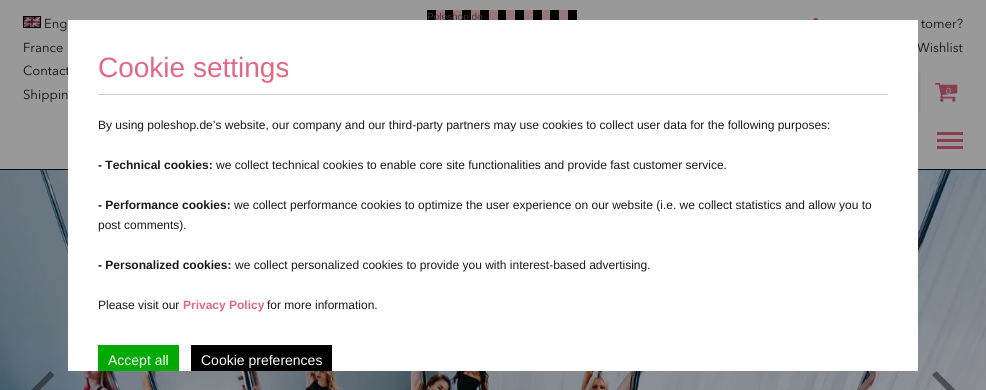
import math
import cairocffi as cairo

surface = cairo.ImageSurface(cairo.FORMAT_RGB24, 986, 390)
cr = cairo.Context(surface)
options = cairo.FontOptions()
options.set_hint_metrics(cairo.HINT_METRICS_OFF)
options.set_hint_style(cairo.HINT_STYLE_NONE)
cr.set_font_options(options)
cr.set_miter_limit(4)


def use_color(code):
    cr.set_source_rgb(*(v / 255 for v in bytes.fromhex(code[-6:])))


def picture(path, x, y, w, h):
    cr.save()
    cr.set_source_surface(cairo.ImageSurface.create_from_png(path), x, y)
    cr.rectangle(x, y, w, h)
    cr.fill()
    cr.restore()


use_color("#999999")
cr.paint()
use_color("#060b1c")
cr.rectangle(0, 169, 986, 1)
cr.fill()
picture("img1.png", 23, 16, 18, 12)
cr.select_font_face("Avenir Next")
cr.set_font_size(13)
use_color("#100f0f")
cr.move_to(44, 28)
cr.show_text("Eng")
cr.move_to(23, 52)
cr.show_text("France")
cr.move_to(23, 75)
cr.show_text("Contact")
cr.move_to(23, 99)
cr.show_text("Shippin")
picture("img2.png", 427, 10, 150, 10)
cr.select_font_face("Liberation Sans")
cr.set_font_size(10)
use_color("#47383a")
cr.move_to(427, 20)
cr.show_text("Poleshop.de")
picture("img3.png", 813, 17, 6, 3)
cr.select_font_face("Avenir Next")
cr.set_font_size(13)
use_color("#100f0f")
cr.move_to(921, 28)
cr.show_text("tomer?")
cr.move_to(917, 52)
cr.show_text("Wishlist")
use_color("#929292")
cr.rectangle(918, 72, 3, 40)
cr.fill()
picture("img4.png", 935, 83, 23, 19)
cr.select_font_face("Liberation Sans")
cr.set_font_size(9)
use_color("#999999")
cr.move_to(946, 94)
cr.show_text("0")
use_color("#883e50")
cr.rectangle(937, 132, 26, 3)
cr.fill()
cr.rectangle(937, 139, 26, 3)
cr.fill()
cr.rectangle(937, 146, 26, 3)
cr.fill()
picture("img5.png", 0, 170, 986, 220)
use_color("#ffffff")
cr.rectangle(68, 20, 850, 351)
cr.fill()
use_color("#cccccc")
cr.rectangle(98, 94, 790, 1)
cr.fill()
cr.set_font_size(28)
use_color("#e36886")
cr.move_to(98, 77)
cr.show_text("Cookie settings")
cr.set_font_size(12)
use_color("#1a1919")
cr.move_to(98, 129)
cr.show_text("By using poleshop.de’s website, our company and our third-party partners may use cookies to collect user data for the following purposes:")
cr.select_font_face("Liberation Sans", cairo.FONT_SLANT_NORMAL, cairo.FONT_WEIGHT_BOLD)
cr.move_to(98, 169)
cr.show_text("- Technical cookies:")
cr.select_font_face("Liberation Sans")
cr.move_to(216, 169)
cr.show_text("we collect technical cookies to enable core site functionalities and provide fast customer service.")
cr.select_font_face("Liberation Sans", cairo.FONT_SLANT_NORMAL, cairo.FONT_WEIGHT_BOLD)
cr.move_to(98, 209)
cr.show_text("- Performance cookies:")
cr.select_font_face("Liberation Sans")
cr.move_to(234, 209)
cr.show_text("we collect performance cookies to optimize the user experience on our website (i.e. we collect statistics and allow you to")
cr.move_to(98, 229)
cr.show_text("post comments).")
cr.select_font_face("Liberation Sans", cairo.FONT_SLANT_NORMAL, cairo.FONT_WEIGHT_BOLD)
cr.move_to(98, 269)
cr.show_text("- Personalized cookies:")
cr.select_font_face("Liberation Sans")
cr.move_to(235, 269)
cr.show_text("we collect personalized cookies to provide you with interest-based advertising.")
cr.move_to(98, 309)
cr.show_text("Please visit our")
cr.select_font_face("Liberation Sans", cairo.FONT_SLANT_NORMAL, cairo.FONT_WEIGHT_BOLD)
use_color("#e36886")
cr.move_to(183, 309)
cr.show_text("Privacy Policy")
cr.select_font_face("Liberation Sans")
use_color("#1a1919")
cr.move_to(267, 309)
cr.show_text("for more information.")
use_color("#00aa00")
cr.rectangle(98, 345, 81, 26)
cr.fill()
cr.set_font_size(14)
use_color("#ffffff")
cr.move_to(108, 365)
cr.show_text("Accept all")
use_color("#000000")
cr.rectangle(191, 345, 141, 26)
cr.fill()
use_color("#ffffff")
cr.move_to(201, 365)
cr.show_text("Cookie preferences")
picture("img6.png", 31, 371, 23, 19)
picture("img7.png", 932, 371, 24, 19)
surface.write_to_png("result.png")
